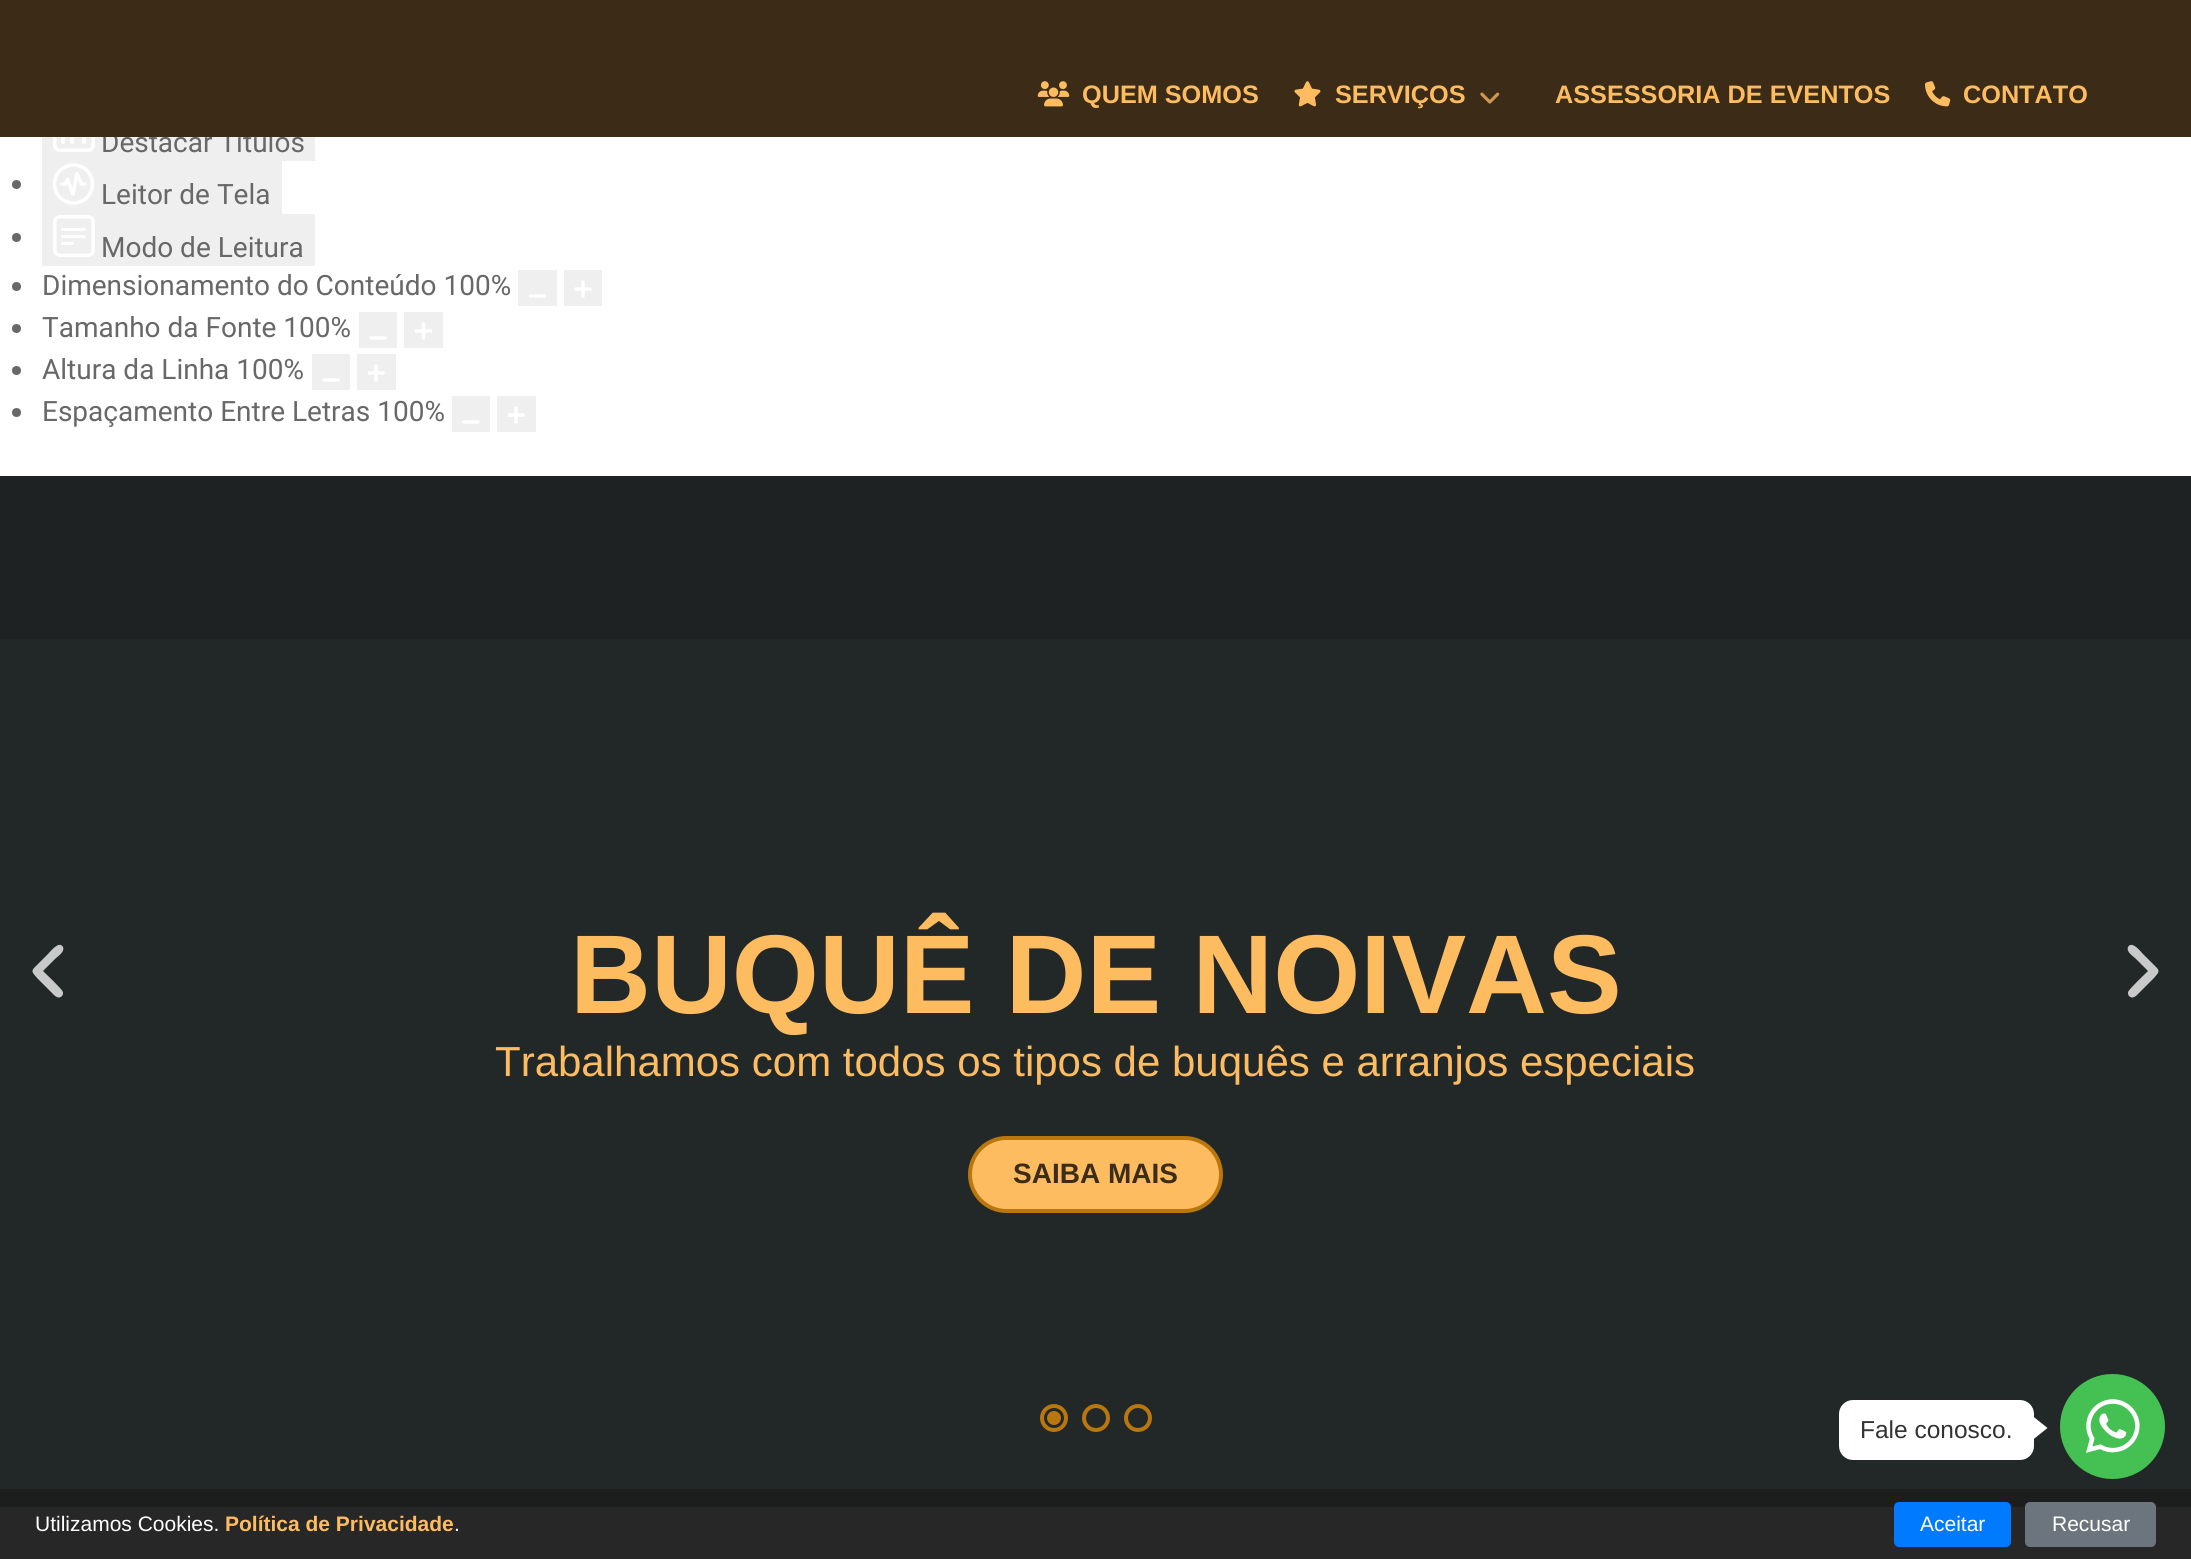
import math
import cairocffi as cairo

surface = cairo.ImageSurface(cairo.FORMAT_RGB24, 2191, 1559)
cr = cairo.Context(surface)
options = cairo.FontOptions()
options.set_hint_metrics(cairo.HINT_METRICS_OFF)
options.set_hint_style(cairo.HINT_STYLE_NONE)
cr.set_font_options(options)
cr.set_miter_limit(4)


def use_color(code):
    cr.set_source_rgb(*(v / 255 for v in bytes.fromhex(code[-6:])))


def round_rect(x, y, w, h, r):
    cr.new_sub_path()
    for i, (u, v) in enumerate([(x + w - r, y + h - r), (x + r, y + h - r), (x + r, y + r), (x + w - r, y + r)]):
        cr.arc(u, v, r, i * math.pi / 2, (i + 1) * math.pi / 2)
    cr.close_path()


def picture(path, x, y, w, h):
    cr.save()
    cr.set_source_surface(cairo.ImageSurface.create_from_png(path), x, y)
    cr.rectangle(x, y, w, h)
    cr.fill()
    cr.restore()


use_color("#ffffff")
cr.paint()
use_color("#efefef")
cr.rectangle(42, 137, 273, 24)
cr.fill()
picture("img1.png", 53, 137, 42, 15)
cr.select_font_face("Roboto")
cr.set_font_size(28)
use_color("#686868")
cr.move_to(101, 152)
cr.show_text("Destacar Títulos")
cr.new_path()
cr.arc(16.5, 184.5, 4.5, 0, 2 * math.pi)
cr.fill()
use_color("#efefef")
cr.rectangle(42, 161, 240, 53)
cr.fill()
cr.save()
cr.rectangle(53, 163, 42, 42)
cr.clip()
cr.arc(73.5, 184, 19, 0, 2 * math.pi)
use_color("#ffffff")
cr.set_line_width(3.5)
cr.stroke()
cr.restore()
cr.new_path()
cr.move_to(62, 184)
cr.line_to(65.5, 184)
cr.line_to(67.5, 179)
cr.line_to(73, 194)
cr.line_to(77, 173.5)
cr.line_to(81.5, 184)
cr.line_to(85, 184)
use_color("#ffffff")
cr.set_line_width(3.5)
cr.set_line_cap(cairo.LINE_CAP_ROUND)
cr.set_line_join(cairo.LINE_JOIN_ROUND)
cr.stroke()
use_color("#686868")
cr.move_to(101, 204)
cr.show_text("Leitor de Tela")
cr.new_path()
cr.arc(16.5, 237.5, 4.5, 0, 2 * math.pi)
cr.fill()
use_color("#efefef")
cr.rectangle(42, 214, 273, 52)
cr.fill()
round_rect(54.75, 216.75, 38.5, 38.5, 5.25)
use_color("#ffffff")
cr.set_line_cap(cairo.LINE_CAP_BUTT)
cr.set_line_join(cairo.LINE_JOIN_MITER)
cr.stroke()
round_rect(61, 228, 25, 3, 1.5)
cr.fill()
round_rect(61, 235, 25, 3, 1.5)
cr.fill()
use_color("#686868")
cr.move_to(101, 257)
cr.show_text("Modo de Leitura")
use_color("#ffffff")
round_rect(61, 242, 13, 3, 1.5)
cr.fill()
use_color("#686868")
cr.arc(16.5, 286.5, 4.5, 0, 2 * math.pi)
cr.fill()
cr.move_to(42, 295)
cr.show_text("Dimensionamento do Conteúdo 100%")
use_color("#efefef")
cr.rectangle(518, 270, 39, 36)
cr.fill()
cr.save()
cr.rectangle(529, 294, 17, 4)
cr.clip()
cr.new_path()
cr.move_to(544, 296)
cr.line_to(530, 296)
use_color("#ffffff")
cr.set_line_cap(cairo.LINE_CAP_ROUND)
cr.stroke()
cr.restore()
cr.rectangle(564, 270, 38, 36)
cr.fill()
cr.new_path()
cr.move_to(583, 282)
cr.line_to(583, 296)
cr.move_to(590, 289)
cr.line_to(576, 289)
use_color("#ffffff")
cr.set_line_cap(cairo.LINE_CAP_ROUND)
cr.stroke()
use_color("#686868")
cr.arc(16.5, 328.5, 4.5, 0, 2 * math.pi)
cr.fill()
use_color("#efefef")
cr.rectangle(359, 312, 38, 36)
cr.fill()
cr.rectangle(404, 312, 39, 36)
cr.fill()
cr.new_path()
cr.move_to(385, 338)
cr.line_to(371, 338)
cr.move_to(423.5, 324)
cr.line_to(423.5, 338)
use_color("#ffffff")
cr.stroke()
use_color("#686868")
cr.move_to(42, 337)
cr.show_text("Tamanho da Fonte 100%")
cr.save()
cr.rectangle(415, 322, 17, 18)
cr.clip()
cr.new_path()
cr.move_to(430.5, 331)
cr.line_to(416.5, 331)
use_color("#ffffff")
cr.stroke()
cr.restore()
cr.arc(16.5, 370.5, 4.5, 0, 2 * math.pi)
cr.fill()
use_color("#efefef")
cr.rectangle(312, 354, 38, 36)
cr.fill()
cr.rectangle(357, 354, 39, 36)
cr.fill()
cr.new_path()
cr.move_to(338, 380)
cr.line_to(324, 380)
cr.move_to(376, 366)
cr.line_to(376, 380)
use_color("#ffffff")
cr.stroke()
use_color("#686868")
cr.move_to(42, 379)
cr.show_text("Altura da Linha 100%")
cr.save()
cr.rectangle(368, 364, 17, 18)
cr.clip()
cr.new_path()
cr.move_to(383, 373)
cr.line_to(369, 373)
use_color("#ffffff")
cr.stroke()
cr.restore()
cr.arc(16.5, 412.5, 4.5, 0, 2 * math.pi)
cr.fill()
use_color("#efefef")
cr.rectangle(452, 396, 38, 36)
cr.fill()
cr.rectangle(497, 396, 39, 36)
cr.fill()
cr.new_path()
cr.move_to(478, 422)
cr.line_to(464, 422)
cr.move_to(516, 408)
cr.line_to(516, 422)
use_color("#ffffff")
cr.stroke()
use_color("#686868")
cr.move_to(42, 421)
cr.show_text("Espaçamento Entre Letras 100%")
cr.save()
cr.rectangle(508, 406, 17, 18)
cr.clip()
cr.new_path()
cr.move_to(523, 415)
cr.line_to(509, 415)
use_color("#ffffff")
cr.stroke()
cr.restore()
use_color("#3c2c17")
cr.rectangle(0, 0, 2191, 137)
cr.fill()
picture("img2.png", 1037, 81, 33, 26)
cr.select_font_face("Liberation Sans", cairo.FONT_SLANT_NORMAL, cairo.FONT_WEIGHT_BOLD)
cr.set_font_size(25.25)
use_color("#febc61")
cr.move_to(1082, 103)
cr.show_text("QUEM SOMOS")
picture("img3.png", 1294, 81, 27, 26)
cr.move_to(1335, 103)
cr.show_text("SERVIÇOS")
picture("img4.png", 1480, 92, 20, 12)
cr.move_to(1555, 103)
cr.show_text("ASSESSORIA DE EVENTOS")
picture("img5.png", 1925, 81, 26, 26)
cr.move_to(1963, 103)
cr.show_text("CONTATO")
use_color("#1e2222")
cr.rectangle(0, 476, 2191, 163)
cr.fill()
use_color("#222828")
cr.rectangle(0, 639, 2191, 850)
cr.fill()
use_color("#1c1d1d")
cr.rectangle(0, 1489, 2191, 18)
cr.fill()
cr.set_font_size(112)
use_color("#febc61")
cr.move_to(570, 1013)
cr.show_text("BUQUÊ DE NOIVAS")
cr.select_font_face("Liberation Sans")
cr.set_font_size(42)
cr.move_to(495, 1076)
cr.show_text("Trabalhamos com todos os tipos de buquês e arranjos especiais")
round_rect(970, 1138, 251, 73, 36.5)
cr.fill_preserve()
use_color("#b9770d")
cr.set_line_width(4)
cr.set_line_cap(cairo.LINE_CAP_BUTT)
cr.stroke()
cr.select_font_face("Liberation Sans", cairo.FONT_SLANT_NORMAL, cairo.FONT_WEIGHT_BOLD)
cr.set_font_size(28)
use_color("#3c2c19")
cr.move_to(1013, 1183)
cr.show_text("SAIBA MAIS")
use_color("#c8c9c9")
cr.new_path()
cr.move_to(34, 968)
cr.curve_to(30, 972, 35, 975, 37, 978)
cr.line_to(52, 993)
cr.curve_to(54, 995, 58, 1000, 62, 996)
cr.curve_to(63, 995, 63, 994, 63, 992)
cr.curve_to(62, 989, 46, 974, 43, 971)
cr.line_to(55, 959)
cr.curve_to(58, 956, 65, 952, 63, 947)
cr.curve_to(59, 940, 50, 952, 48, 954)
cr.close_path()
cr.fill()
cr.new_path()
cr.move_to(2157, 968)
cr.curve_to(2161, 972, 2156, 975, 2154, 978)
cr.line_to(2139, 993)
cr.curve_to(2137, 995, 2133, 1000, 2129, 996)
cr.curve_to(2128, 995, 2128, 994, 2128, 992)
cr.curve_to(2129, 989, 2145, 974, 2148, 971)
cr.line_to(2136, 959)
cr.curve_to(2133, 956, 2126, 952, 2128, 947)
cr.curve_to(2132, 940, 2141, 952, 2143, 954)
cr.close_path()
cr.fill()
use_color("#b9770d")
cr.arc(1054, 1418, 7, 0, 2 * math.pi)
cr.fill()
cr.arc(1054, 1418, 12, 0, 2 * math.pi)
cr.stroke()
cr.arc(1096, 1418, 12, 0, 2 * math.pi)
cr.stroke()
cr.arc(1138, 1418, 12, 0, 2 * math.pi)
cr.stroke()
use_color("#272727")
cr.rectangle(0, 1507, 2191, 52)
cr.fill()
use_color("#ffffff")
round_rect(1839, 1400, 195, 60, 14)
cr.fill()
cr.select_font_face("Liberation Sans")
cr.set_font_size(24.5)
use_color("#333333")
cr.move_to(1860, 1438)
cr.show_text("Fale conosco.")
use_color("#ffffff")
cr.new_path()
cr.move_to(2030, 1442)
cr.line_to(2030, 1414)
cr.line_to(2047.5, 1428)
cr.close_path()
cr.fill()
use_color("#45c153")
cr.arc(2112.5, 1426.5, 52.5, 0, 2 * math.pi)
cr.fill()
picture("img6.png", 2086, 1399, 54, 54)
cr.set_font_size(21)
use_color("#ffffff")
cr.move_to(35, 1531)
cr.show_text("Utilizamos Cookies.")
cr.select_font_face("Liberation Sans", cairo.FONT_SLANT_NORMAL, cairo.FONT_WEIGHT_BOLD)
use_color("#febc61")
cr.move_to(225, 1531)
cr.show_text("Política de Privacidade")
cr.select_font_face("Liberation Sans")
use_color("#ffffff")
cr.move_to(454, 1531)
cr.show_text(".")
use_color("#007bff")
round_rect(1894, 1502, 117, 45, 5)
cr.fill()
use_color("#ffffff")
cr.move_to(1920, 1531)
cr.show_text("Aceitar")
use_color("#6c757d")
round_rect(2025, 1502, 131, 45, 5)
cr.fill()
use_color("#ffffff")
cr.move_to(2052, 1531)
cr.show_text("Recusar")
surface.write_to_png("result.png")
